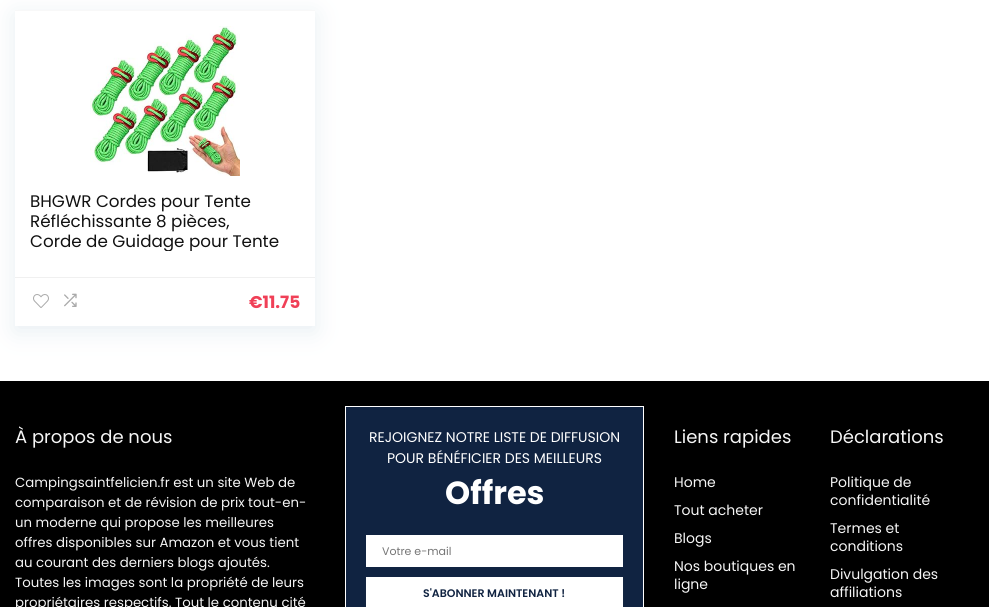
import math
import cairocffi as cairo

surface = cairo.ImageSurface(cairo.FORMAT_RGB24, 989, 607)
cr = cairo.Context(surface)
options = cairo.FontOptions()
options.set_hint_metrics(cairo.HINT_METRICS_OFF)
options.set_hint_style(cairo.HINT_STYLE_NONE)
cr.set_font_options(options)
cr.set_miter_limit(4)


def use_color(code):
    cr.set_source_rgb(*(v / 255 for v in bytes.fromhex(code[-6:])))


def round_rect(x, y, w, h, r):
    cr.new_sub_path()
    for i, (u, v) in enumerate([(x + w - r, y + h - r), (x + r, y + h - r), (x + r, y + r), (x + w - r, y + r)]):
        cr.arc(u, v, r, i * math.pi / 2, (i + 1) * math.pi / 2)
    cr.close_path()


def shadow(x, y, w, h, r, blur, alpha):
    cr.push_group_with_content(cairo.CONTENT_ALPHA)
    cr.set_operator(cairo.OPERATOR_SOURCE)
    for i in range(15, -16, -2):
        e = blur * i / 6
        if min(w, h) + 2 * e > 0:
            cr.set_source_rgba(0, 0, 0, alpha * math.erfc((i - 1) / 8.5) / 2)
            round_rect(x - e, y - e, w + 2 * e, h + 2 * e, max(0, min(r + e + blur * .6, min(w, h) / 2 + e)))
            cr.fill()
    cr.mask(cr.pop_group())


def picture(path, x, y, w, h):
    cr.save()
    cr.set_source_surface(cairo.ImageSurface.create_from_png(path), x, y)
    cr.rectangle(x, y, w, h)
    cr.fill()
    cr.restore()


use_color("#ffffff")
cr.paint()
cr.save()
cr.set_fill_rule(cairo.FILL_RULE_EVEN_ODD)
cr.new_path()
cr.move_to(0, 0)
cr.line_to(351, 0)
cr.line_to(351, 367)
cr.line_to(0, 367)
cr.close_path()
cr.move_to(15, 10)
cr.line_to(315, 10)
cr.line_to(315, 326)
cr.line_to(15, 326)
cr.close_path()
cr.clip()
use_color("#bccfdb")
shadow(15, 15, 300, 316, 0, 11.5, 0.35)
cr.restore()
use_color("#f8f8f8")
cr.rectangle(15, 10, 300, 1)
cr.fill()
picture("img1.png", 90, 26, 150, 150)
cr.select_font_face("Poppins")
cr.set_font_size(16.75)
use_color("#111111")
cr.move_to(30, 207)
cr.show_text("BHGWR Cordes pour Tente")
cr.move_to(30, 227)
cr.show_text("Réfléchissante 8 pièces,")
cr.save()
cr.rectangle(30, 191, 255, 60)
cr.clip()
cr.move_to(30, 247)
cr.show_text("Corde de Guidage pour Tente")
cr.restore()
use_color("#f0f0f0")
cr.rectangle(15, 277, 300, 1)
cr.fill()
picture("img2.png", 33, 294, 16, 14)
picture("img3.png", 64, 293, 13, 14)
cr.select_font_face("Poppins", cairo.FONT_SLANT_NORMAL, cairo.FONT_WEIGHT_BOLD)
cr.set_font_size(17)
use_color("#f04057")
cr.move_to(249, 308)
cr.show_text("€11.75")
use_color("#000000")
cr.rectangle(0, 381, 989, 226)
cr.fill()
cr.select_font_face("Poppins")
cr.set_font_size(18)
use_color("#f5f5f5")
cr.move_to(15, 443)
cr.show_text("À propos de nous")
cr.set_font_size(13.3)
cr.move_to(15, 487)
cr.show_text("Campingsaintfelicien.fr est un site Web de")
cr.move_to(15, 507)
cr.show_text("comparaison et de révision de prix tout-en-")
cr.move_to(15, 527)
cr.show_text("un moderne qui propose les meilleures")
cr.move_to(15, 547)
cr.show_text("offres disponibles sur Amazon et vous tient")
cr.move_to(15, 567)
cr.show_text("au courant des derniers blogs ajoutés.")
cr.move_to(15, 587)
cr.show_text("Toutes les images sont la propriété de leurs")
cr.move_to(15, 607)
cr.show_text("propriétaires respectifs. Tout le contenu cité")
use_color("#102341")
cr.rectangle(345.5, 406.5, 298, 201)
cr.fill_preserve()
use_color("#ffffff")
cr.set_line_width(1)
cr.stroke()
cr.set_font_size(14)
cr.move_to(369, 442)
cr.show_text("REJOIGNEZ NOTRE LISTE DE DIFFUSION")
cr.move_to(387, 463)
cr.show_text("POUR BÉNÉFICIER DES MEILLEURS")
cr.select_font_face("Poppins", cairo.FONT_SLANT_NORMAL, cairo.FONT_WEIGHT_BOLD)
cr.set_font_size(32)
cr.move_to(445, 504)
cr.show_text("Offres")
cr.rectangle(366, 535, 257, 32)
cr.fill()
cr.select_font_face("Poppins")
cr.set_font_size(11)
use_color("#757575")
cr.move_to(382, 555)
cr.show_text("Votre e-mail")
use_color("#3c4043")
shadow(366, 578, 257, 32, 0, 1, 0.3)
use_color("#ffffff")
cr.rectangle(366, 577, 257, 30)
cr.fill()
cr.select_font_face("Poppins SemiBold")
use_color("#102341")
cr.move_to(423, 597)
cr.show_text("S'ABONNER MAINTENANT !")
cr.select_font_face("Poppins")
cr.set_font_size(18)
use_color("#f5f5f5")
cr.move_to(674, 443)
cr.show_text("Liens rapides")
cr.set_font_size(14)
cr.move_to(674, 487)
cr.show_text("Home")
cr.move_to(674, 515)
cr.show_text("Tout acheter")
cr.move_to(674, 543)
cr.show_text("Blogs")
cr.move_to(674, 571)
cr.show_text("Nos boutiques en")
cr.move_to(674, 589)
cr.show_text("ligne")
cr.set_font_size(18)
cr.move_to(830, 443)
cr.show_text("Déclarations")
cr.set_font_size(14)
cr.move_to(830, 487)
cr.show_text("Politique de")
cr.move_to(830, 505)
cr.show_text("confidentialité")
cr.move_to(830, 533)
cr.show_text("Termes et")
cr.move_to(830, 551)
cr.show_text("conditions")
cr.move_to(830, 579)
cr.show_text("Divulgation des")
cr.move_to(830, 597)
cr.show_text("affiliations")
surface.write_to_png("result.png")
